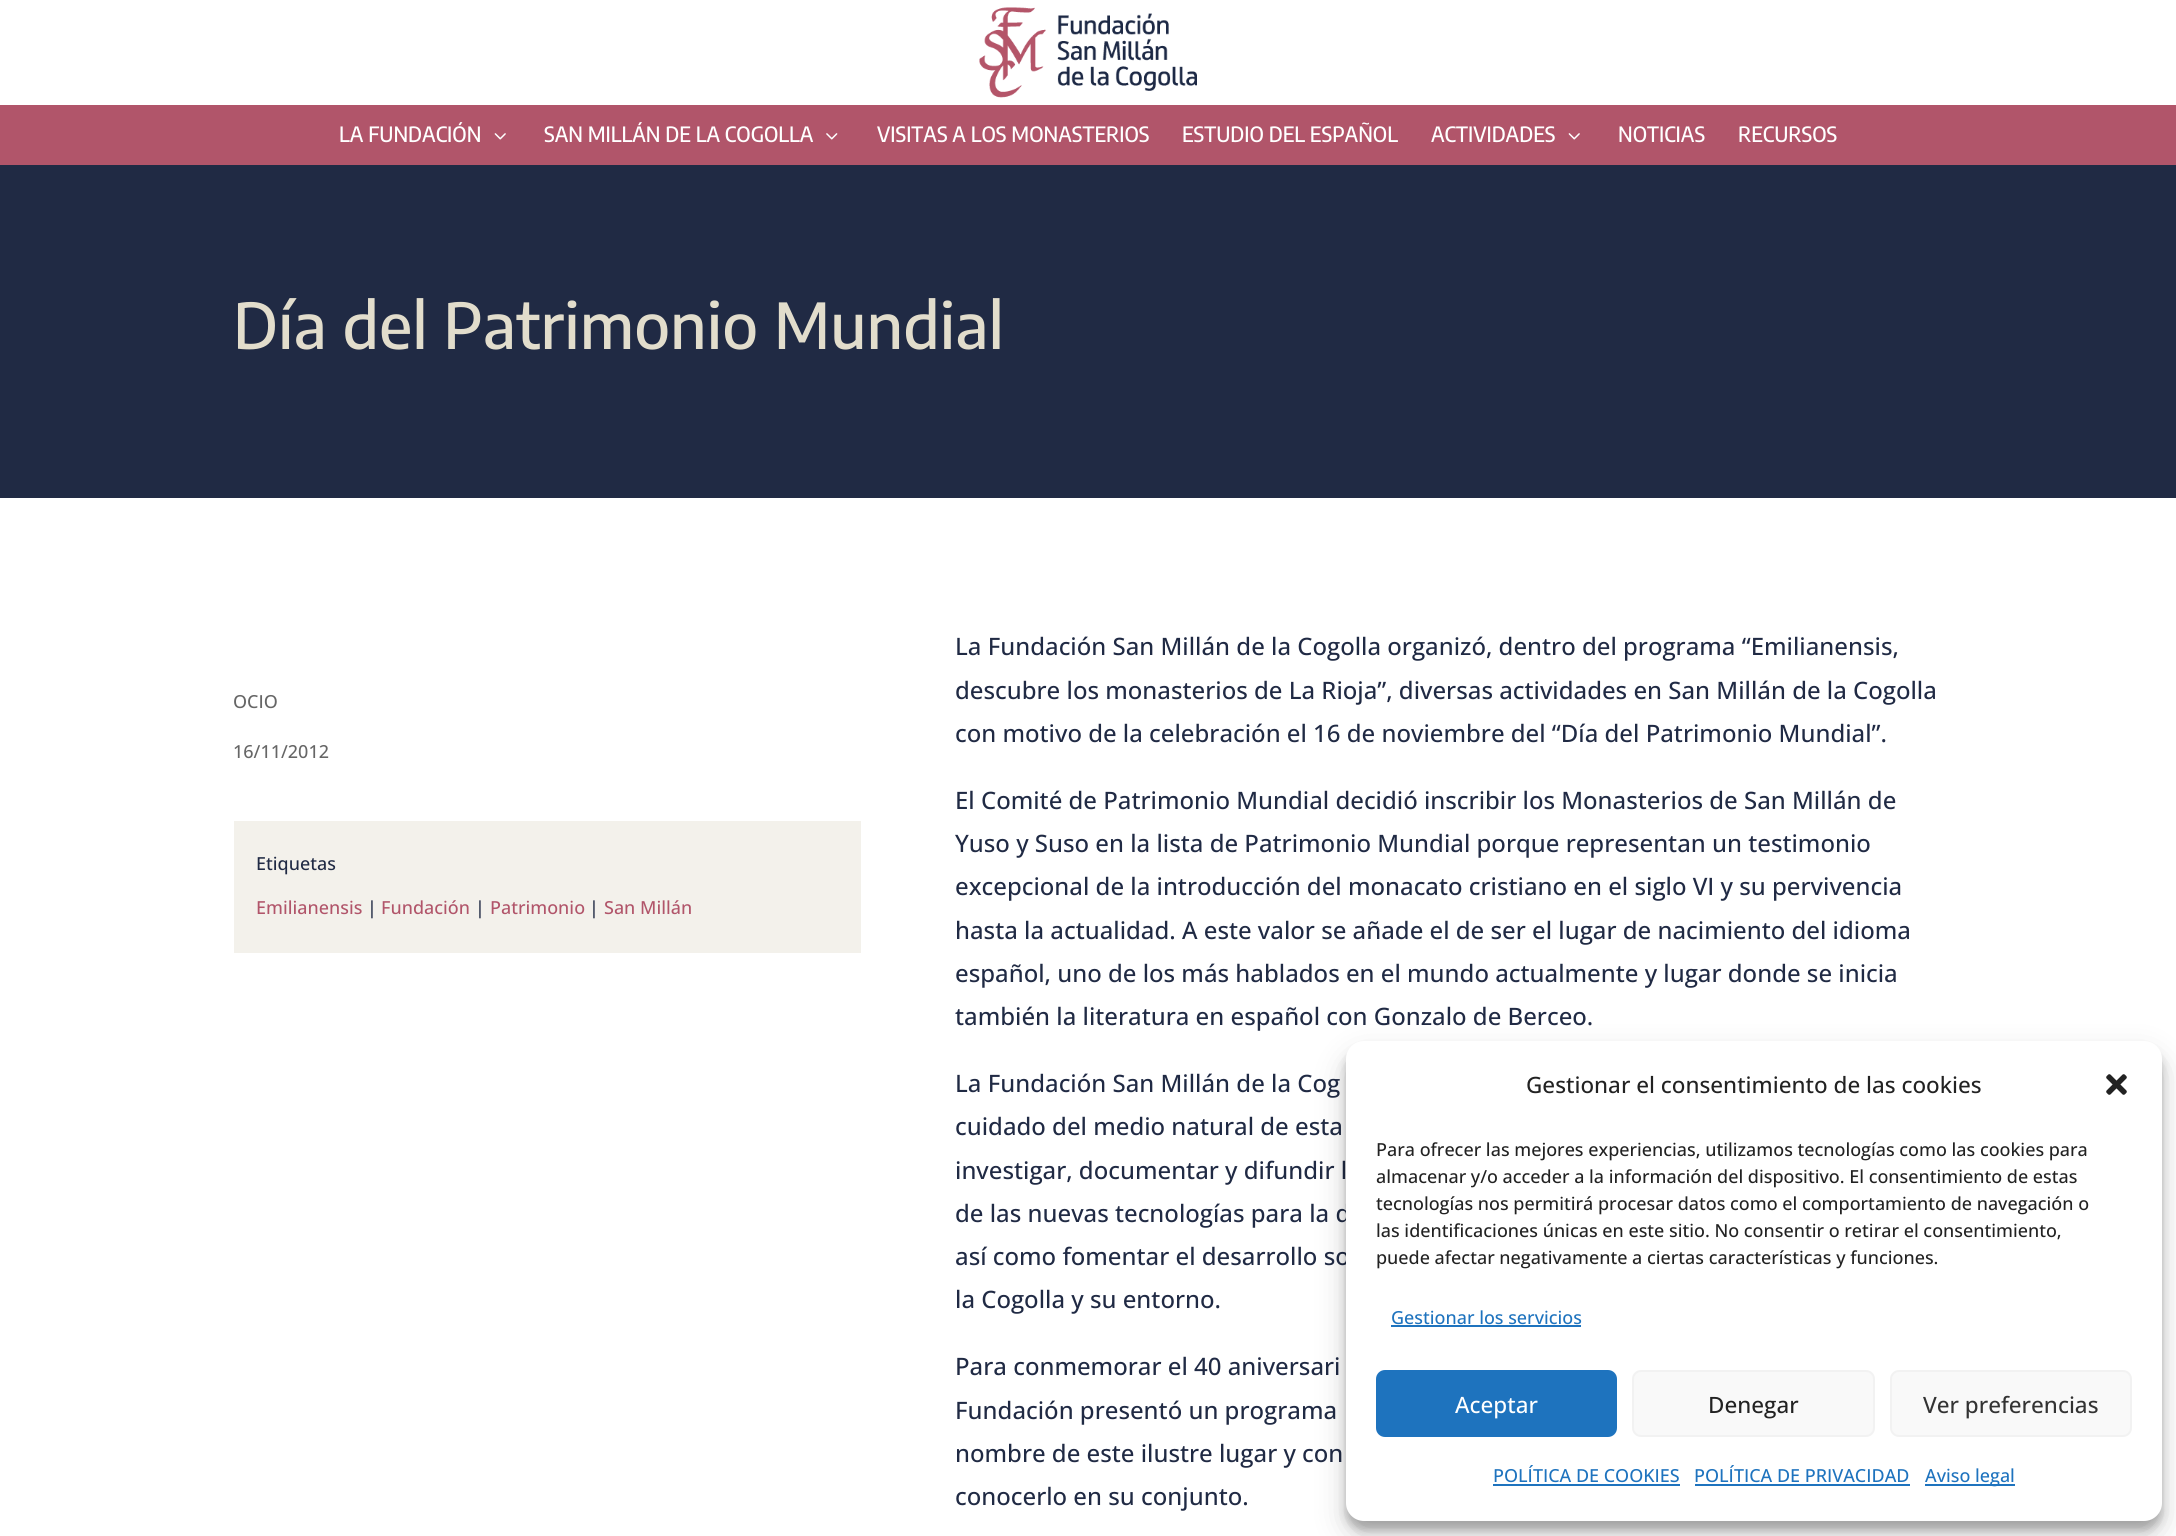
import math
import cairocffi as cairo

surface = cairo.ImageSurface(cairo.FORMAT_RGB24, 2176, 1536)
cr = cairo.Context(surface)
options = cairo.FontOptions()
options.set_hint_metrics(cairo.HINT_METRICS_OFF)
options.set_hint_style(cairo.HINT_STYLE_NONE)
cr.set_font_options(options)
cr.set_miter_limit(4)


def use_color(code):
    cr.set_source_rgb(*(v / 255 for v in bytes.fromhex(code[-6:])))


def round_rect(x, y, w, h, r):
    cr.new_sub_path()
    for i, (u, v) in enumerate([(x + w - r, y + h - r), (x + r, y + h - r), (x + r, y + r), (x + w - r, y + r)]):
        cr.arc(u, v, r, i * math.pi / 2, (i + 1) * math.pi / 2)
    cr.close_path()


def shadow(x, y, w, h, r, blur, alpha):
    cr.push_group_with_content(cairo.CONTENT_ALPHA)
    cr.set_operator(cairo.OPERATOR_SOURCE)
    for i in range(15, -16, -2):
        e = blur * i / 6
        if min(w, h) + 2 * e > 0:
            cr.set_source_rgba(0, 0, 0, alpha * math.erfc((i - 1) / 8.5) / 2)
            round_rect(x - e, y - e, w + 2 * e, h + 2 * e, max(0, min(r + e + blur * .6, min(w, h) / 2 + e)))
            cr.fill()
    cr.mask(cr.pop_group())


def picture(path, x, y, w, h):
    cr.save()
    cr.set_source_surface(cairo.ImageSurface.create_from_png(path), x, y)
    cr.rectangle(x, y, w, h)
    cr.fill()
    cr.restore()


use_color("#ffffff")
cr.paint()
picture("img1.png", 979, 7, 218, 91)
use_color("#b1556a")
cr.rectangle(0, 105, 2176, 60)
cr.fill()
cr.select_font_face("Encode Sans Semi Condensed Medium")
cr.set_font_size(21)
use_color("#ffffff")
cr.move_to(339, 142)
cr.show_text("LA FUNDACIÓN")
picture("img2.png", 494, 133, 12, 7)
cr.move_to(544, 142)
cr.show_text("SAN MILLÁN DE LA COGOLLA")
picture("img3.png", 826, 133, 12, 7)
cr.move_to(877, 142)
cr.show_text("VISITAS A LOS MONASTERIOS")
cr.move_to(1182, 142)
cr.show_text("ESTUDIO DEL ESPAÑOL")
cr.move_to(1431, 142)
cr.show_text("ACTIVIDADES")
picture("img2.png", 1568, 133, 12, 7)
cr.move_to(1618, 142)
cr.show_text("NOTICIAS")
cr.move_to(1738, 142)
cr.show_text("RECURSOS")
use_color("#202a44")
cr.rectangle(0, 165, 2176, 333)
cr.fill()
cr.select_font_face("Encode Sans Condensed Thin")
cr.set_font_size(63)
use_color("#e2ddcc")
cr.move_to(233, 349)
cr.show_text("Día del Patrimonio Mundial")
cr.select_font_face("Open Sans Medium")
cr.set_font_size(18)
use_color("#666666")
cr.move_to(233, 708)
cr.show_text("OCIO")
cr.move_to(233, 758)
cr.show_text("16/11/2012")
use_color("#f3f1eb")
cr.rectangle(234, 821, 627, 132)
cr.fill()
use_color("#202a44")
cr.move_to(256, 870)
cr.show_text("Etiquetas")
use_color("#b1556a")
cr.move_to(256, 914)
cr.show_text("Emilianensis")
use_color("#202a44")
cr.move_to(367, 914)
cr.show_text("|")
use_color("#b1556a")
cr.move_to(381, 914)
cr.show_text("Fundación")
use_color("#202a44")
cr.move_to(475, 914)
cr.show_text("|")
use_color("#b1556a")
cr.move_to(490, 914)
cr.show_text("Patrimonio")
use_color("#202a44")
cr.move_to(589, 914)
cr.show_text("|")
use_color("#b1556a")
cr.move_to(604, 914)
cr.show_text("San Millán")
cr.set_font_size(24)
use_color("#202a44")
cr.move_to(955, 655)
cr.show_text("La Fundación San Millán de la Cogolla organizó, dentro del programa “Emilianensis,")
cr.move_to(955, 699)
cr.show_text("descubre los monasterios de La Rioja”, diversas actividades en San Millán de la Cogolla")
cr.move_to(955, 742)
cr.show_text("con motivo de la celebración el 16 de noviembre del “Día del Patrimonio Mundial”.")
cr.move_to(955, 809)
cr.show_text("El Comité de Patrimonio Mundial decidió inscribir los Monasterios de San Millán de")
cr.move_to(955, 852)
cr.show_text("Yuso y Suso en la lista de Patrimonio Mundial porque representan un testimonio")
cr.move_to(955, 895)
cr.show_text("excepcional de la introducción del monacato cristiano en el siglo VI y su pervivencia")
cr.move_to(955, 939)
cr.show_text("hasta la actualidad. A este valor se añade el de ser el lugar de nacimiento del idioma")
cr.move_to(955, 982)
cr.show_text("español, uno de los más hablados en el mundo actualmente y lugar donde se inicia")
cr.move_to(955, 1025)
cr.show_text("también la literatura en español con Gonzalo de Berceo.")
cr.move_to(955, 1092)
cr.show_text("La Fundación San Millán de la Cog")
cr.move_to(955, 1135)
cr.show_text("cuidado del medio natural de esta")
cr.move_to(955, 1179)
cr.show_text("investigar, documentar y difundir l")
cr.move_to(955, 1222)
cr.show_text("de las nuevas tecnologías para la d")
cr.move_to(955, 1265)
cr.show_text("así como fomentar el desarrollo so")
cr.move_to(955, 1308)
cr.show_text("la Cogolla y su entorno.")
cr.move_to(955, 1375)
cr.show_text("Para conmemorar el 40 aniversari")
cr.move_to(955, 1419)
cr.show_text("Fundación presentó un programa")
cr.move_to(955, 1462)
cr.show_text("nombre de este ilustre lugar y con")
cr.move_to(955, 1505)
cr.show_text("conocerlo en su conjunto.")
use_color("#000000")
shadow(1346, 1050, 816, 480, 18, 4.5, 0.23)
shadow(1346, 1056, 816, 480, 18, 15, 0.19)
use_color("#ffffff")
round_rect(1346, 1041, 816, 480, 18)
cr.fill()
cr.set_font_size(22.5)
use_color("#222222")
cr.move_to(1526, 1093)
cr.show_text("Gestionar el consentimiento de las cookies")
picture("img4.png", 2106, 1074, 21, 21)
cr.set_font_size(18)
cr.move_to(1376, 1156)
cr.show_text("Para ofrecer las mejores experiencias, utilizamos tecnologías como las cookies para")
cr.move_to(1376, 1183)
cr.show_text("almacenar y/o acceder a la información del dispositivo. El consentimiento de estas")
cr.move_to(1376, 1210)
cr.show_text("tecnologías nos permitirá procesar datos como el comportamiento de navegación o")
cr.move_to(1376, 1237)
cr.show_text("las identificaciones únicas en este sitio. No consentir o retirar el consentimiento,")
cr.move_to(1376, 1264)
cr.show_text("puede afectar negativamente a ciertas características y funciones.")
use_color("#1e73be")
cr.move_to(1391, 1324)
cr.show_text("Gestionar los servicios")
cr.rectangle(1391, 1325, 190, 2)
cr.fill()
round_rect(1377, 1371, 239, 65, 8)
cr.fill_preserve()
cr.stroke()
cr.set_font_size(22.5)
use_color("#ffffff")
cr.move_to(1455, 1413)
cr.show_text("Aceptar")
use_color("#f9f9f9")
round_rect(1633, 1371, 241, 65, 8)
cr.fill_preserve()
use_color("#f2f2f2")
cr.stroke()
use_color("#222222")
cr.move_to(1708, 1413)
cr.show_text("Denegar")
use_color("#f9f9f9")
round_rect(1891, 1371, 240, 65, 8)
cr.fill_preserve()
use_color("#f2f2f2")
cr.stroke()
use_color("#333333")
cr.move_to(1923, 1413)
cr.show_text("Ver preferencias")
cr.set_font_size(18)
use_color("#1e73be")
cr.move_to(1493, 1482)
cr.show_text("POLÍTICA DE COOKIES")
cr.rectangle(1493, 1484, 187, 2)
cr.fill()
cr.move_to(1694, 1482)
cr.show_text("POLÍTICA DE PRIVACIDAD")
cr.rectangle(1695, 1484, 215, 2)
cr.fill()
cr.rectangle(1925, 1484, 90, 2)
cr.fill()
cr.move_to(1925, 1482)
cr.show_text("Aviso legal")
surface.write_to_png("result.png")
